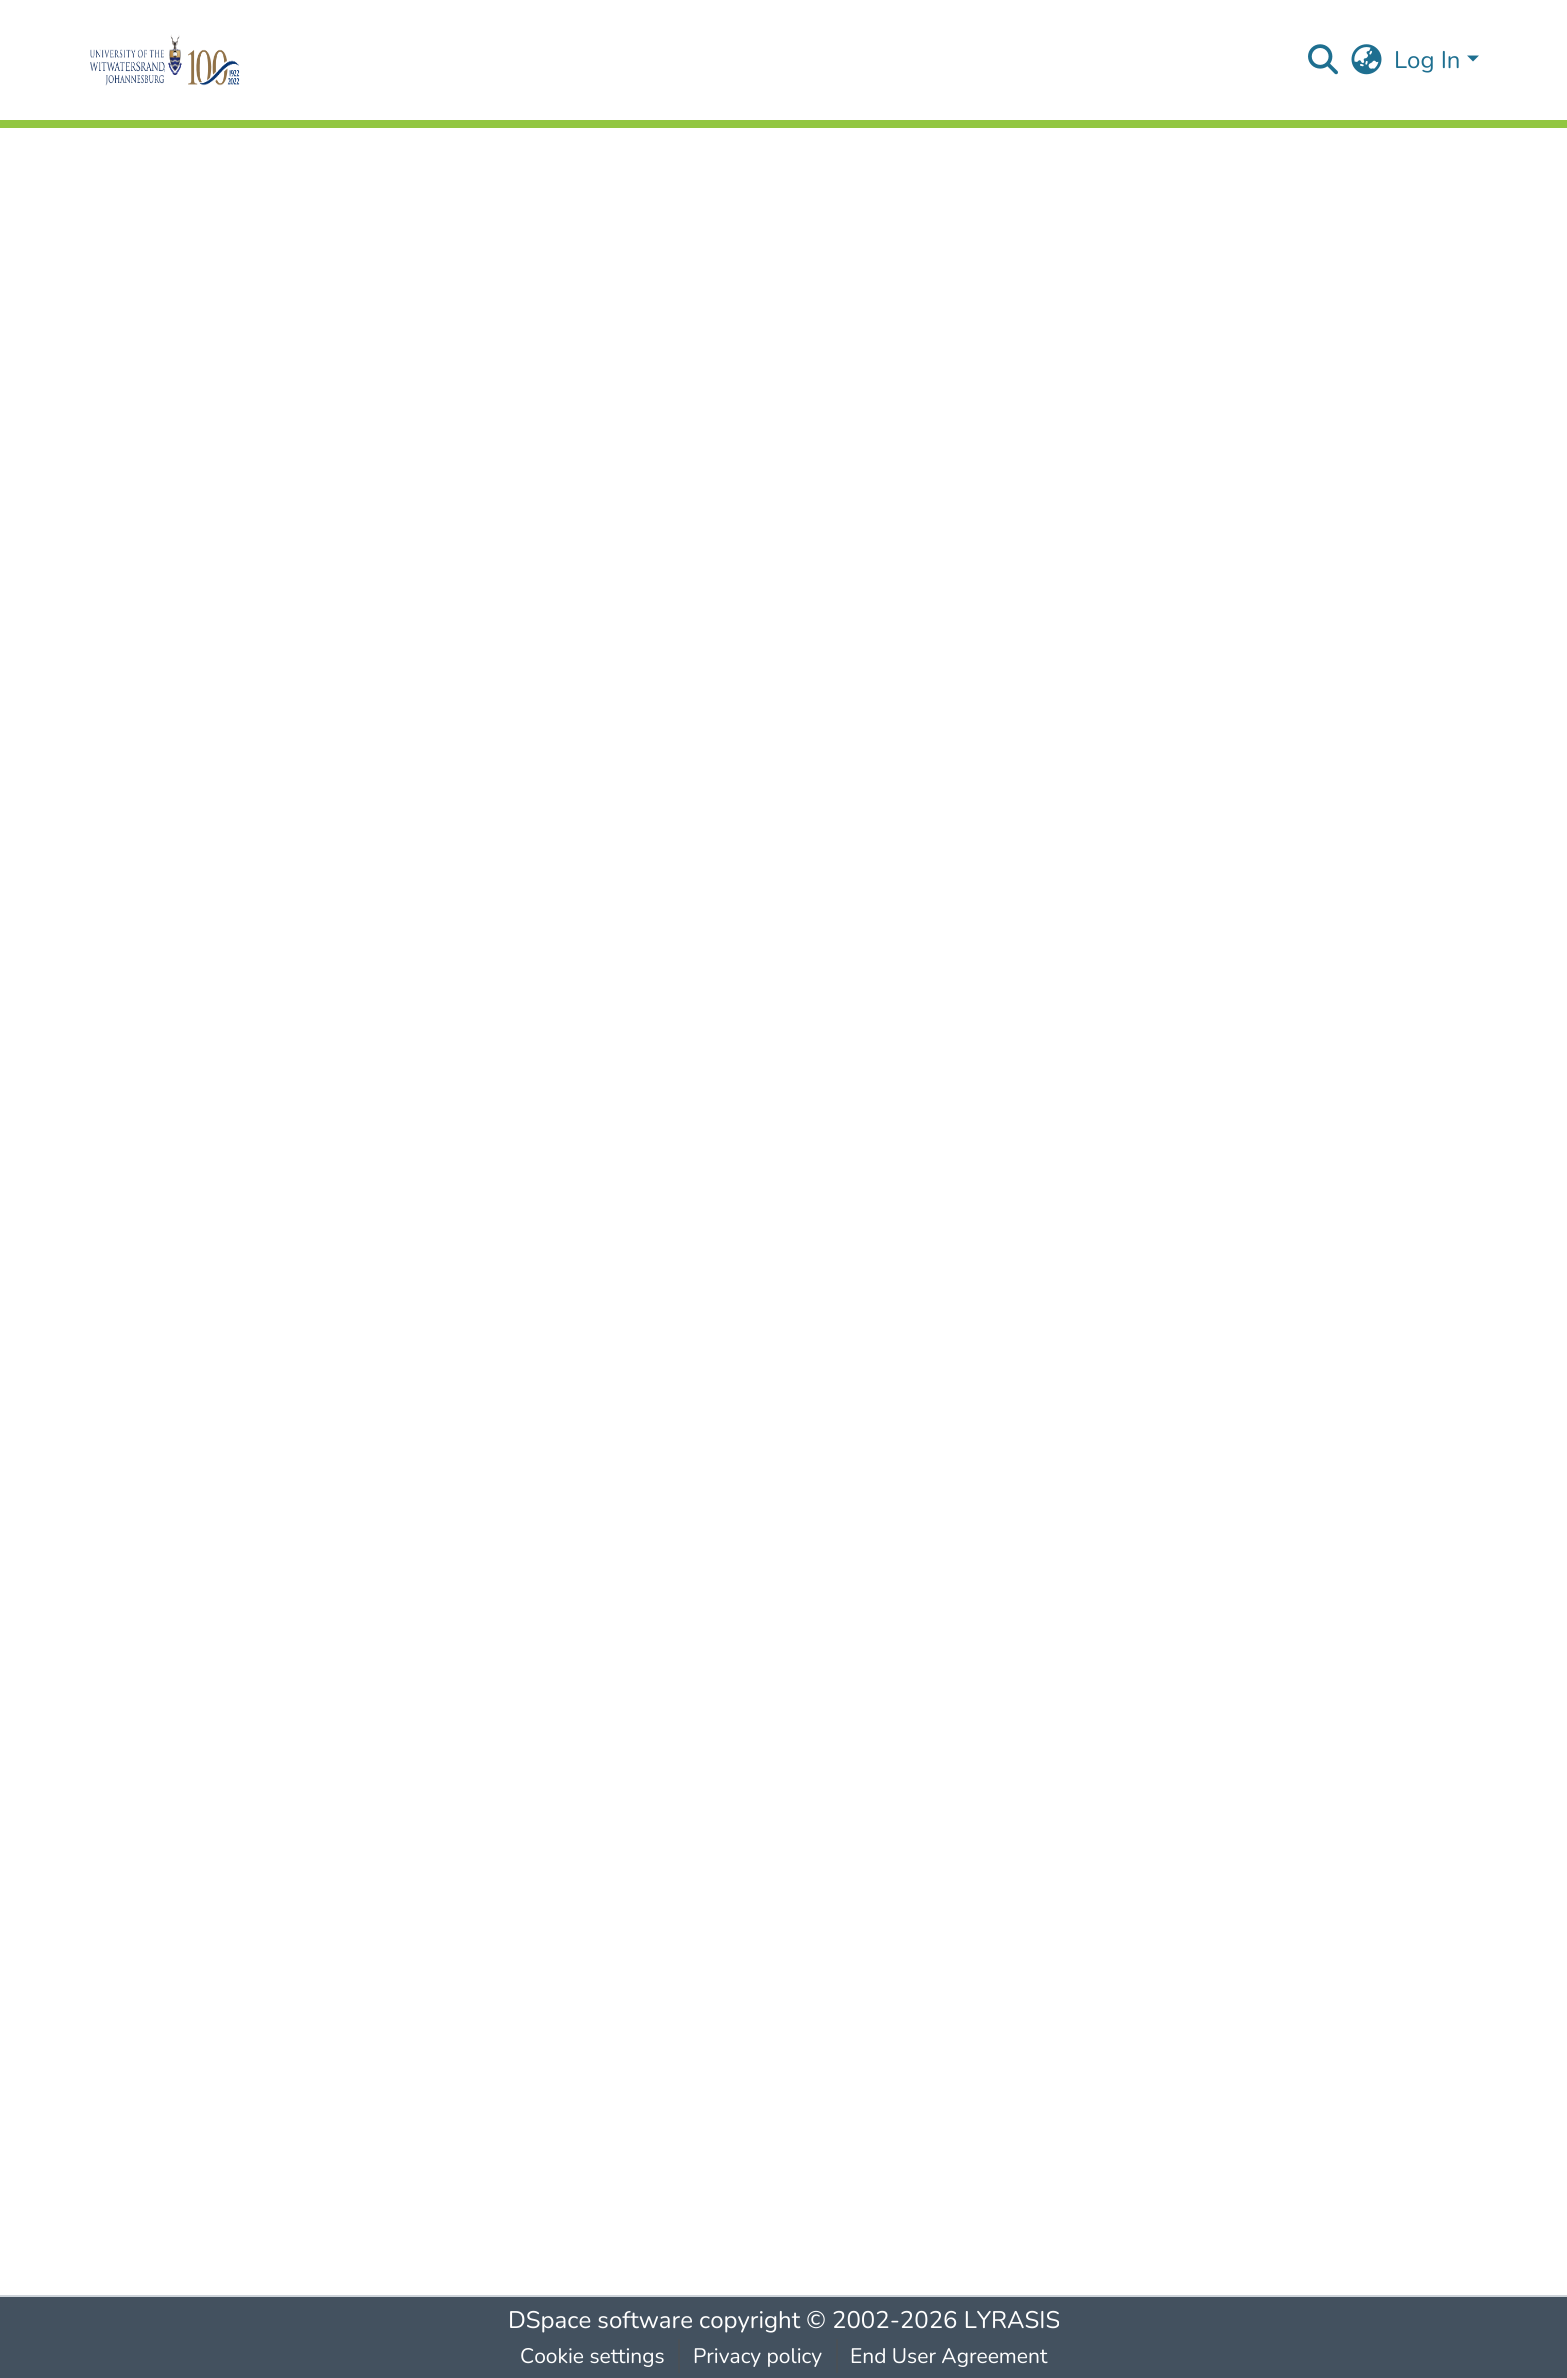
import math
import cairocffi as cairo

surface = cairo.ImageSurface(cairo.FORMAT_RGB24, 1567, 2378)
cr = cairo.Context(surface)
options = cairo.FontOptions()
options.set_hint_metrics(cairo.HINT_METRICS_OFF)
options.set_hint_style(cairo.HINT_STYLE_NONE)
cr.set_font_options(options)
cr.set_miter_limit(4)


def use_color(code):
    cr.set_source_rgb(*(v / 255 for v in bytes.fromhex(code[-6:])))


def picture(path, x, y, w, h):
    cr.save()
    cr.set_source_surface(cairo.ImageSurface.create_from_png(path), x, y)
    cr.rectangle(x, y, w, h)
    cr.fill()
    cr.restore()


use_color("#ffffff")
cr.paint()
use_color("#92c642")
cr.rectangle(0, 120, 1567, 8)
cr.fill()
picture("img1.png", 90, 34, 150, 52)
picture("img2.png", 1308, 44, 30, 31)
picture("img3.png", 1351, 44, 31, 31)
cr.select_font_face("Nunito")
cr.set_font_size(24)
use_color("#1e6f90")
cr.move_to(1394, 68)
cr.show_text("Log In")
cr.new_path()
cr.move_to(1467, 55.5)
cr.line_to(1479, 55.5)
cr.line_to(1473, 61.5)
cr.close_path()
cr.fill()
use_color("#43515f")
cr.rectangle(0, 2297, 1567, 81)
cr.fill()
use_color("#ced4da")
cr.rectangle(0, 2295, 1567, 2)
cr.fill()
use_color("#ffffff")
cr.move_to(508, 2328)
cr.show_text("DSpace software copyright © 2002-2026 LYRASIS")
cr.set_font_size(21)
cr.move_to(520, 2363)
cr.show_text("Cookie settings")
use_color("#495057")
cr.rectangle(678, 2339, 2, 34)
cr.fill()
use_color("#ffffff")
cr.move_to(693, 2363)
cr.show_text("Privacy policy")
use_color("#495057")
cr.rectangle(836, 2339, 2, 34)
cr.fill()
use_color("#ffffff")
cr.move_to(850, 2363)
cr.show_text("End User Agreement")
surface.write_to_png("result.png")
